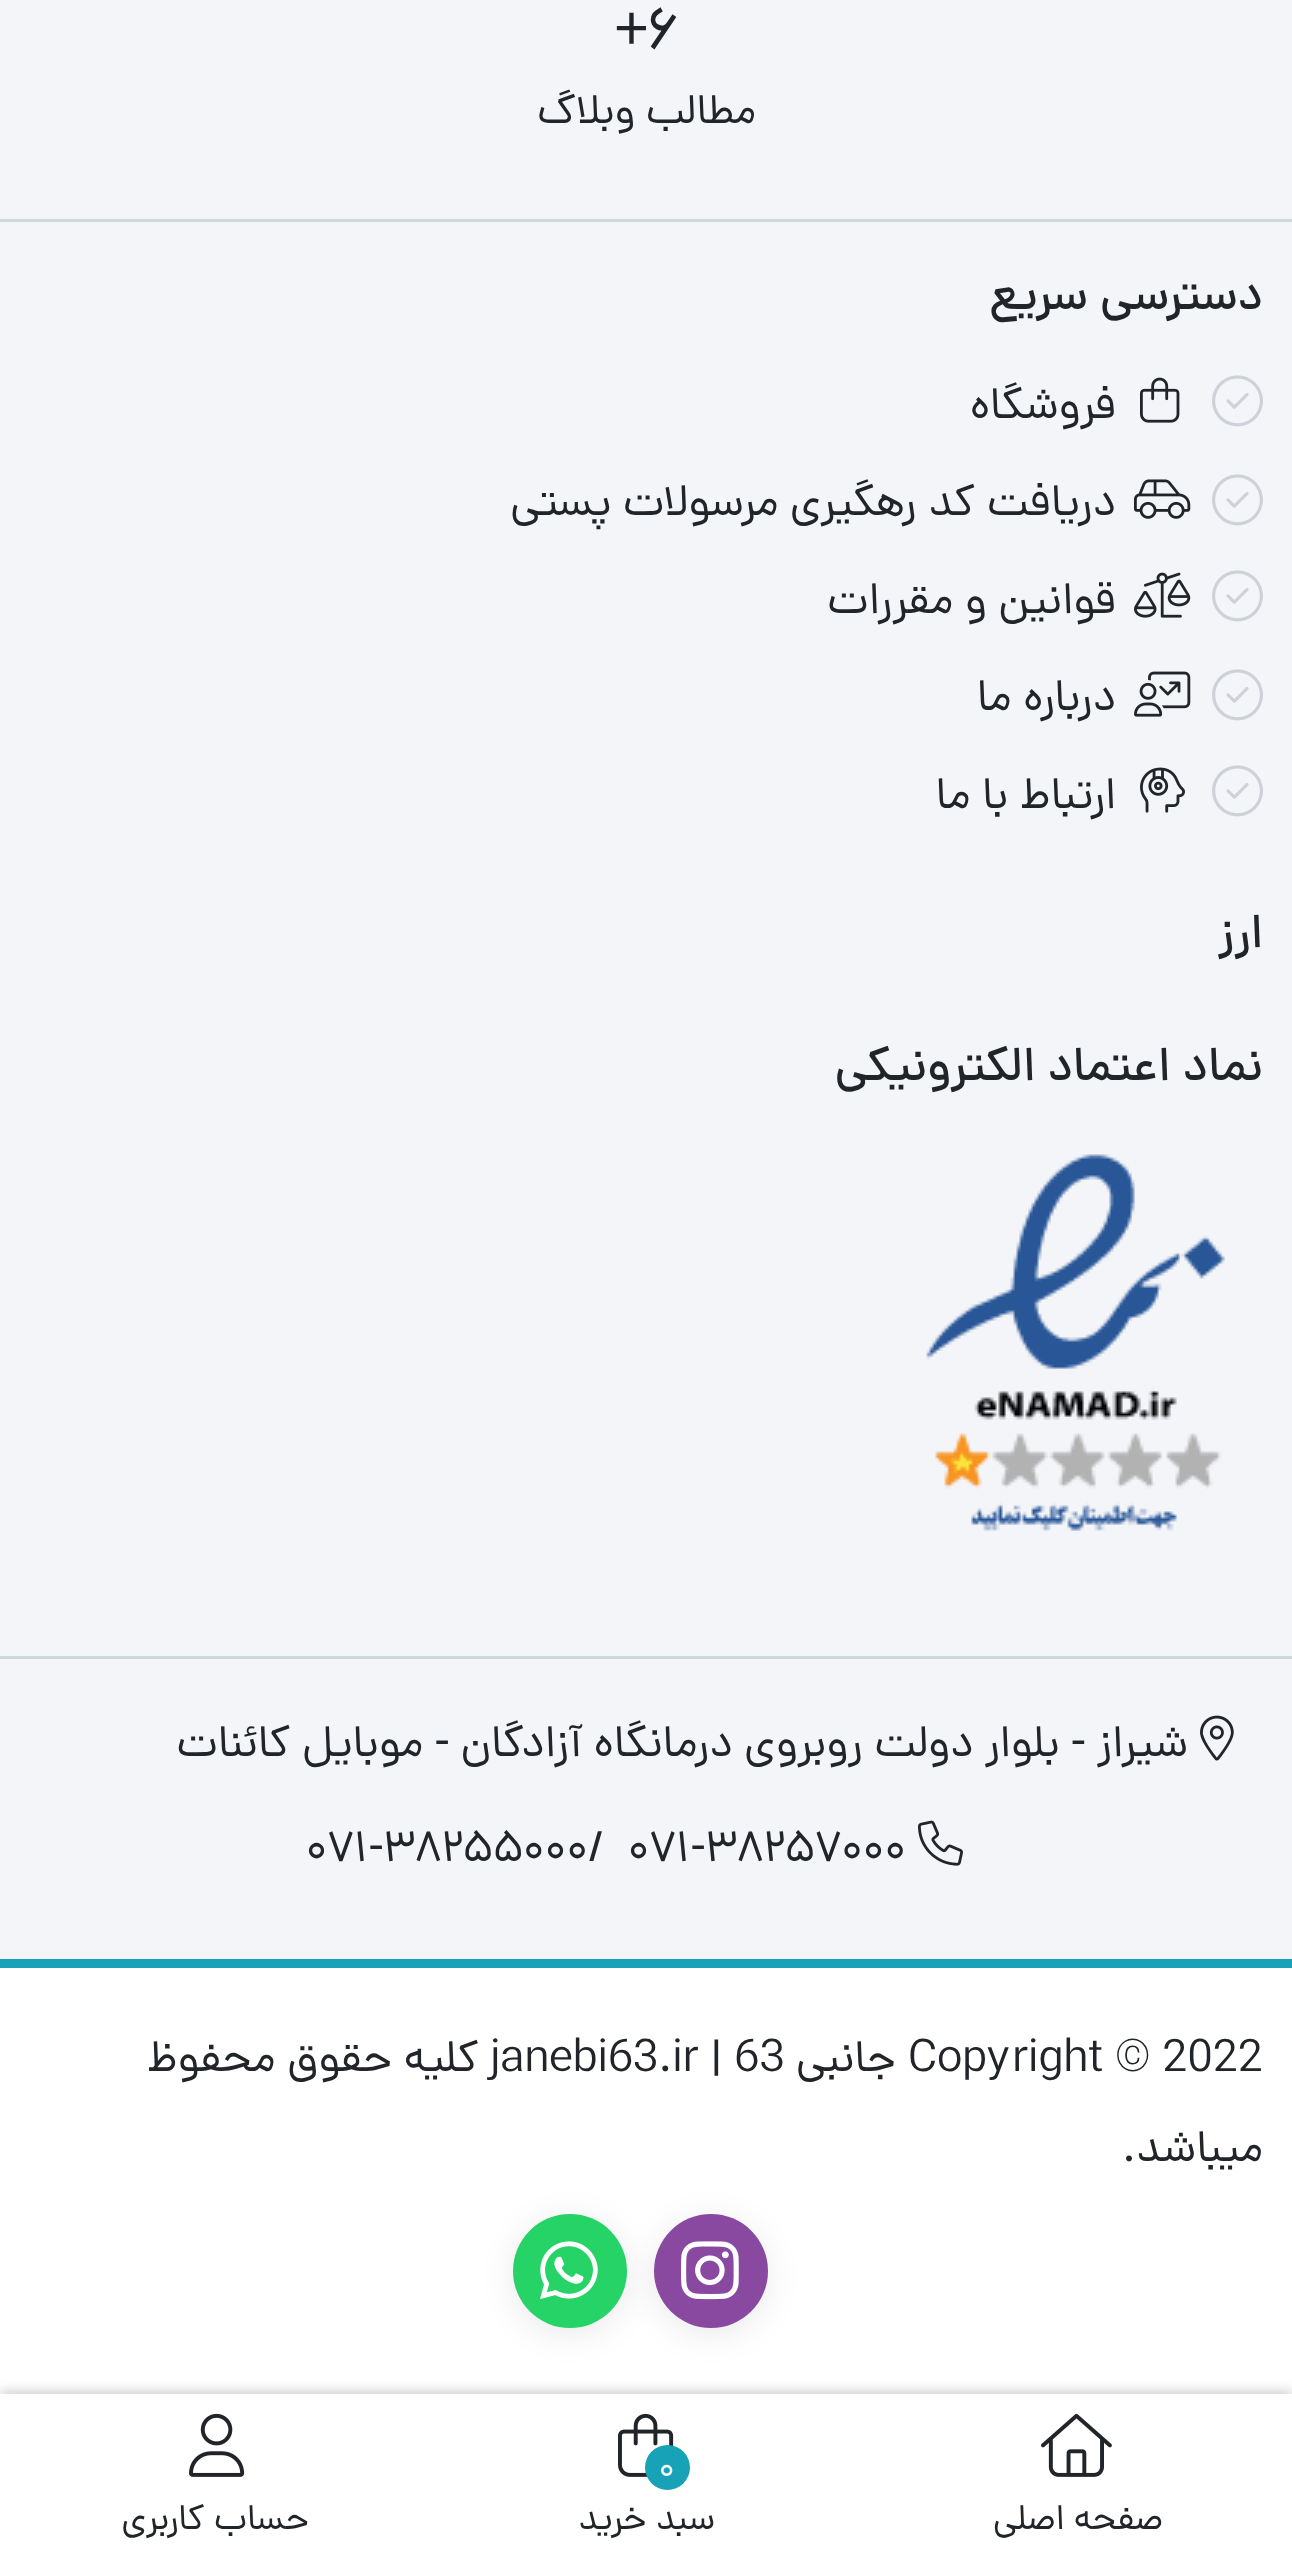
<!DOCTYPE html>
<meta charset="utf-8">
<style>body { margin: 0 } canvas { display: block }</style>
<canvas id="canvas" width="1292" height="2559"></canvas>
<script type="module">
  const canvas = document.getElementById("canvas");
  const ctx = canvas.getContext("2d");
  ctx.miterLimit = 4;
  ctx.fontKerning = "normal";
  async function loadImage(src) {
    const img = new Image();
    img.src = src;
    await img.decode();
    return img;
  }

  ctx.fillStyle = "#f4f5f9";
  ctx.fillRect(0, 0, 1292, 2559);
  ctx.fillStyle = "#cfd8dc";
  ctx.fillRect(0, 219, 1292, 3);
  ctx.font = "60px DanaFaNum";
  ctx.fillStyle = "#212529";
  ctx.fillText("+6", 615, 48);
  ctx.direction = "rtl";
  ctx.font = "42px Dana";
  ctx.fillText("مطالب وبلاگ", 756, 123);
  ctx.fillStyle = "#cfd8dc";
  ctx.fillRect(0, 1656, 1292, 3);
  ctx.font = "500 48px Dana";
  ctx.fillStyle = "#212529";
  ctx.fillText("دسترسی سریع", 1263, 309);
  ctx.drawImage(await loadImage("img1.png"), 1212, 375, 51, 52);
  ctx.drawImage(await loadImage("img2.png"), 1140, 377, 40, 46);
  ctx.font = "45px Dana";
  ctx.fillText("فروشگاه", 1116, 418);
  ctx.drawImage(await loadImage("img1.png"), 1212, 474, 51, 52);
  ctx.drawImage(await loadImage("img3.png"), 1134, 479, 57, 40);
  ctx.fillText("دریافت کد رهگیری مرسولات پستی", 1116, 515);
  ctx.drawImage(await loadImage("img1.png"), 1212, 570, 51, 52);
  ctx.drawImage(await loadImage("img4.png"), 1134, 572, 57, 46);
  ctx.fillText("قوانین و مقررات", 1116, 613);
  ctx.drawImage(await loadImage("img1.png"), 1212, 669, 51, 52);
  ctx.drawImage(await loadImage("img5.png"), 1134, 671, 57, 46);
  ctx.fillText("درباره ما", 1116, 710);
  ctx.drawImage(await loadImage("img1.png"), 1212, 765, 51, 52);
  ctx.drawImage(await loadImage("img6.png"), 1140, 767, 45, 46);
  ctx.fillText("ارتباط با ما", 1116, 808);
  ctx.font = "500 48px Dana";
  ctx.fillText("ارز", 1263, 947);
  ctx.fillText("نماد اعتماد الکترونیکی", 1263, 1080);
  ctx.drawImage(await loadImage("img7.png"), 926, 1154, 299, 377);
  ctx.drawImage(await loadImage("img8.png"), 1200, 1715, 34, 46);
  ctx.font = "45px DanaFaNum";
  ctx.fillText("شیراز - بلوار دولت روبروی درمانگاه آزادگان - موبایل کائنات", 1188, 1756);
  ctx.drawImage(await loadImage("img9.png"), 918, 1820, 45, 46);
  ctx.direction = "ltr";
  ctx.fillText("071-38257000", 628, 1861);
  ctx.fillText("071-38255000/", 306, 1861);
  ctx.fillStyle = "#ffffff";
  ctx.fillRect(0, 1968, 1292, 426);
  ctx.fillStyle = "#17a2b8";
  ctx.fillRect(0, 1959, 1292, 9);
  ctx.font = "45px Dana";
  ctx.fillStyle = "#212529";
  ctx.fillText("Copyright © 2022", 908, 2071);
  ctx.direction = "rtl";
  ctx.fillText("جانبی", 896, 2071);
  ctx.direction = "ltr";
  ctx.fillText("janebi63.ir | 63", 490, 2071);
  ctx.direction = "rtl";
  ctx.fillText("کلیه حقوق محفوظ", 479, 2071);
  ctx.fillText("میباشد.", 1263, 2161);
  ctx.fillStyle = "rgba(0, 0, 0, 0.07)";
  ctx.filter = "blur(15px)";
  ctx.beginPath();
  ctx.roundRect(510, 2217, 120, 120, 60);
  ctx.fill();
  ctx.filter = "none";
  ctx.fillStyle = "#25d366";
  ctx.beginPath();
  ctx.arc(570, 2271, 57, 0, Math.PI * 2);
  ctx.fill();
  ctx.fillStyle = "rgba(0, 0, 0, 0.07)";
  ctx.filter = "blur(15px)";
  ctx.beginPath();
  ctx.roundRect(651, 2217, 120, 120, 60);
  ctx.fill();
  ctx.filter = "none";
  ctx.fillStyle = "#8a49a1";
  ctx.beginPath();
  ctx.arc(711, 2271, 57, 0, Math.PI * 2);
  ctx.fill();
  ctx.drawImage(await loadImage("img10.png"), 681, 2241, 58, 59);
  ctx.drawImage(await loadImage("img11.png"), 540, 2241, 58, 59);
  ctx.fillStyle = "rgba(0, 0, 0, 0.19)";
  ctx.filter = "blur(6px)";
  ctx.beginPath();
  ctx.rect(0, 2391, 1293, 165);
  ctx.fill();
  ctx.filter = "none";
  ctx.fillStyle = "#ffffff";
  ctx.fillRect(0, 2394, 1292, 165);
  ctx.drawImage(await loadImage("img12.png"), 1041, 2413, 71, 64);
  ctx.font = "36px Dana";
  ctx.fillStyle = "#212529";
  ctx.fillText("صفحه اصلی", 1163, 2529);
  ctx.drawImage(await loadImage("img13.png"), 618, 2413, 56, 64);
  ctx.fillStyle = "#17a2b8";
  ctx.beginPath();
  ctx.arc(667.5, 2467.5, 22.5, 0, Math.PI * 2);
  ctx.fill();
  ctx.direction = "ltr";
  ctx.font = "33px DanaFaNum";
  ctx.fillStyle = "#ffffff";
  ctx.fillText("0", 659, 2478);
  ctx.direction = "rtl";
  ctx.font = "36px Dana";
  ctx.fillStyle = "#212529";
  ctx.fillText("سبد خرید", 715, 2529);
  ctx.drawImage(await loadImage("img14.png"), 189, 2413, 56, 64);
  ctx.fillText("حساب کاربری", 309, 2529);
</script>
